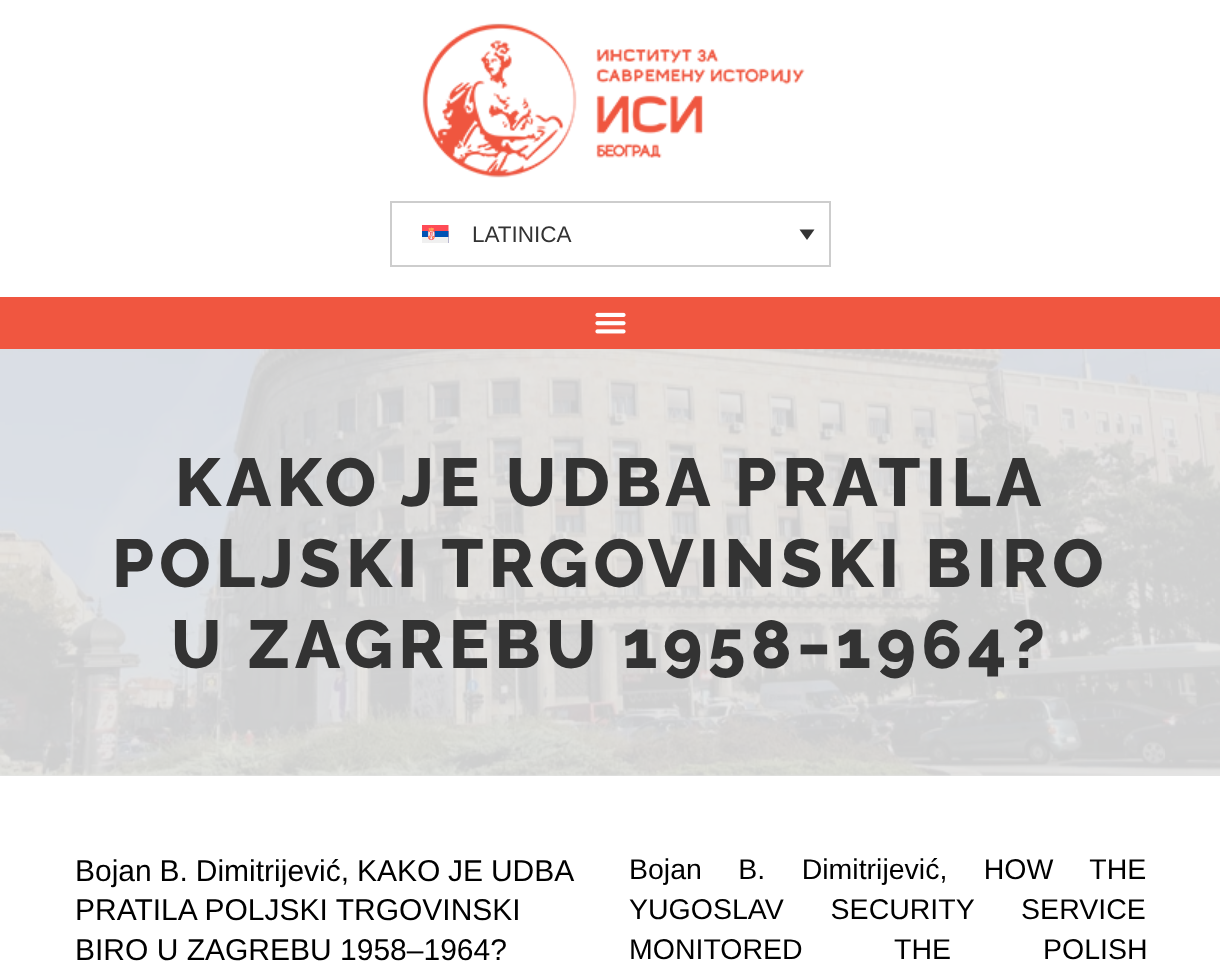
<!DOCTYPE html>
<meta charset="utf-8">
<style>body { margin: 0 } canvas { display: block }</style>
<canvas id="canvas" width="1220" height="976"></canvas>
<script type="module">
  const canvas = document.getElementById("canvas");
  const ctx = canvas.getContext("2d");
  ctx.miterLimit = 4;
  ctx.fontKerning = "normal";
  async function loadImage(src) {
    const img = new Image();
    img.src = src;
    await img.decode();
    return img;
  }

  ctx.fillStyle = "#ffffff";
  ctx.fillRect(0, 0, 1220, 976);
  ctx.fillStyle = "#e6e6e6";
  ctx.fillRect(0, 774, 1220, 2);
  ctx.fillStyle = "#f05640";
  ctx.fillRect(0, 297, 1220, 52);
  ctx.drawImage(await loadImage("img1.png"), 422, 23, 383, 155);
  ctx.strokeStyle = "#cdcdcd";
  ctx.lineWidth = 2;
  ctx.strokeRect(391, 202, 439, 64);
  ctx.drawImage(await loadImage("img2.png"), 422, 225, 27, 18);
  ctx.font = "22.5px Liberation Sans";
  ctx.fillStyle = "#333333";
  ctx.fillText("LATINICA", 472, 242);
  ctx.beginPath();
  ctx.moveTo(799.5, 229.5);
  ctx.lineTo(814.5, 229.5);
  ctx.lineTo(807, 240);
  ctx.closePath();
  ctx.fill();
  ctx.drawImage(await loadImage("img3.png"), 595, 312, 31, 22);
  ctx.drawImage(await loadImage("img4.png"), 0, 349, 1220, 427);
  ctx.letterSpacing = "5.25px";
  ctx.font = "800 67.5px Raleway";
  ctx.fillText("KAKO JE UDBA PRATILA", 175, 506);
  ctx.fillText("POLJSKI TRGOVINSKI BIRO", 112, 587);
  ctx.fillText("U ZAGREBU 1958‒1964?", 171, 668);
  ctx.letterSpacing = "0px";
  ctx.wordSpacing = "-0.5px";
  ctx.font = "30px Liberation Sans";
  ctx.fillStyle = "#000000";
  ctx.fillText("Bojan B. Dimitrijević, KAKO JE UDBA", 75, 881);
  ctx.wordSpacing = "0px";
  ctx.fillText("PRATILA POLJSKI TRGOVINSKI", 75, 920);
  ctx.fillText("BIRO U ZAGREBU 1958‒1964?", 75, 960);
  ctx.wordSpacing = "28.5px";
  ctx.font = "28.5px Liberation Sans";
  ctx.fillText("Bojan B. Dimitrijević, HOW THE", 629, 879);
  ctx.wordSpacing = "39px";
  ctx.fillText("YUGOSLAV SECURITY SERVICE", 629, 919);
  ctx.wordSpacing = "84px";
  ctx.fillText("MONITORED THE POLISH", 629, 959);
</script>
